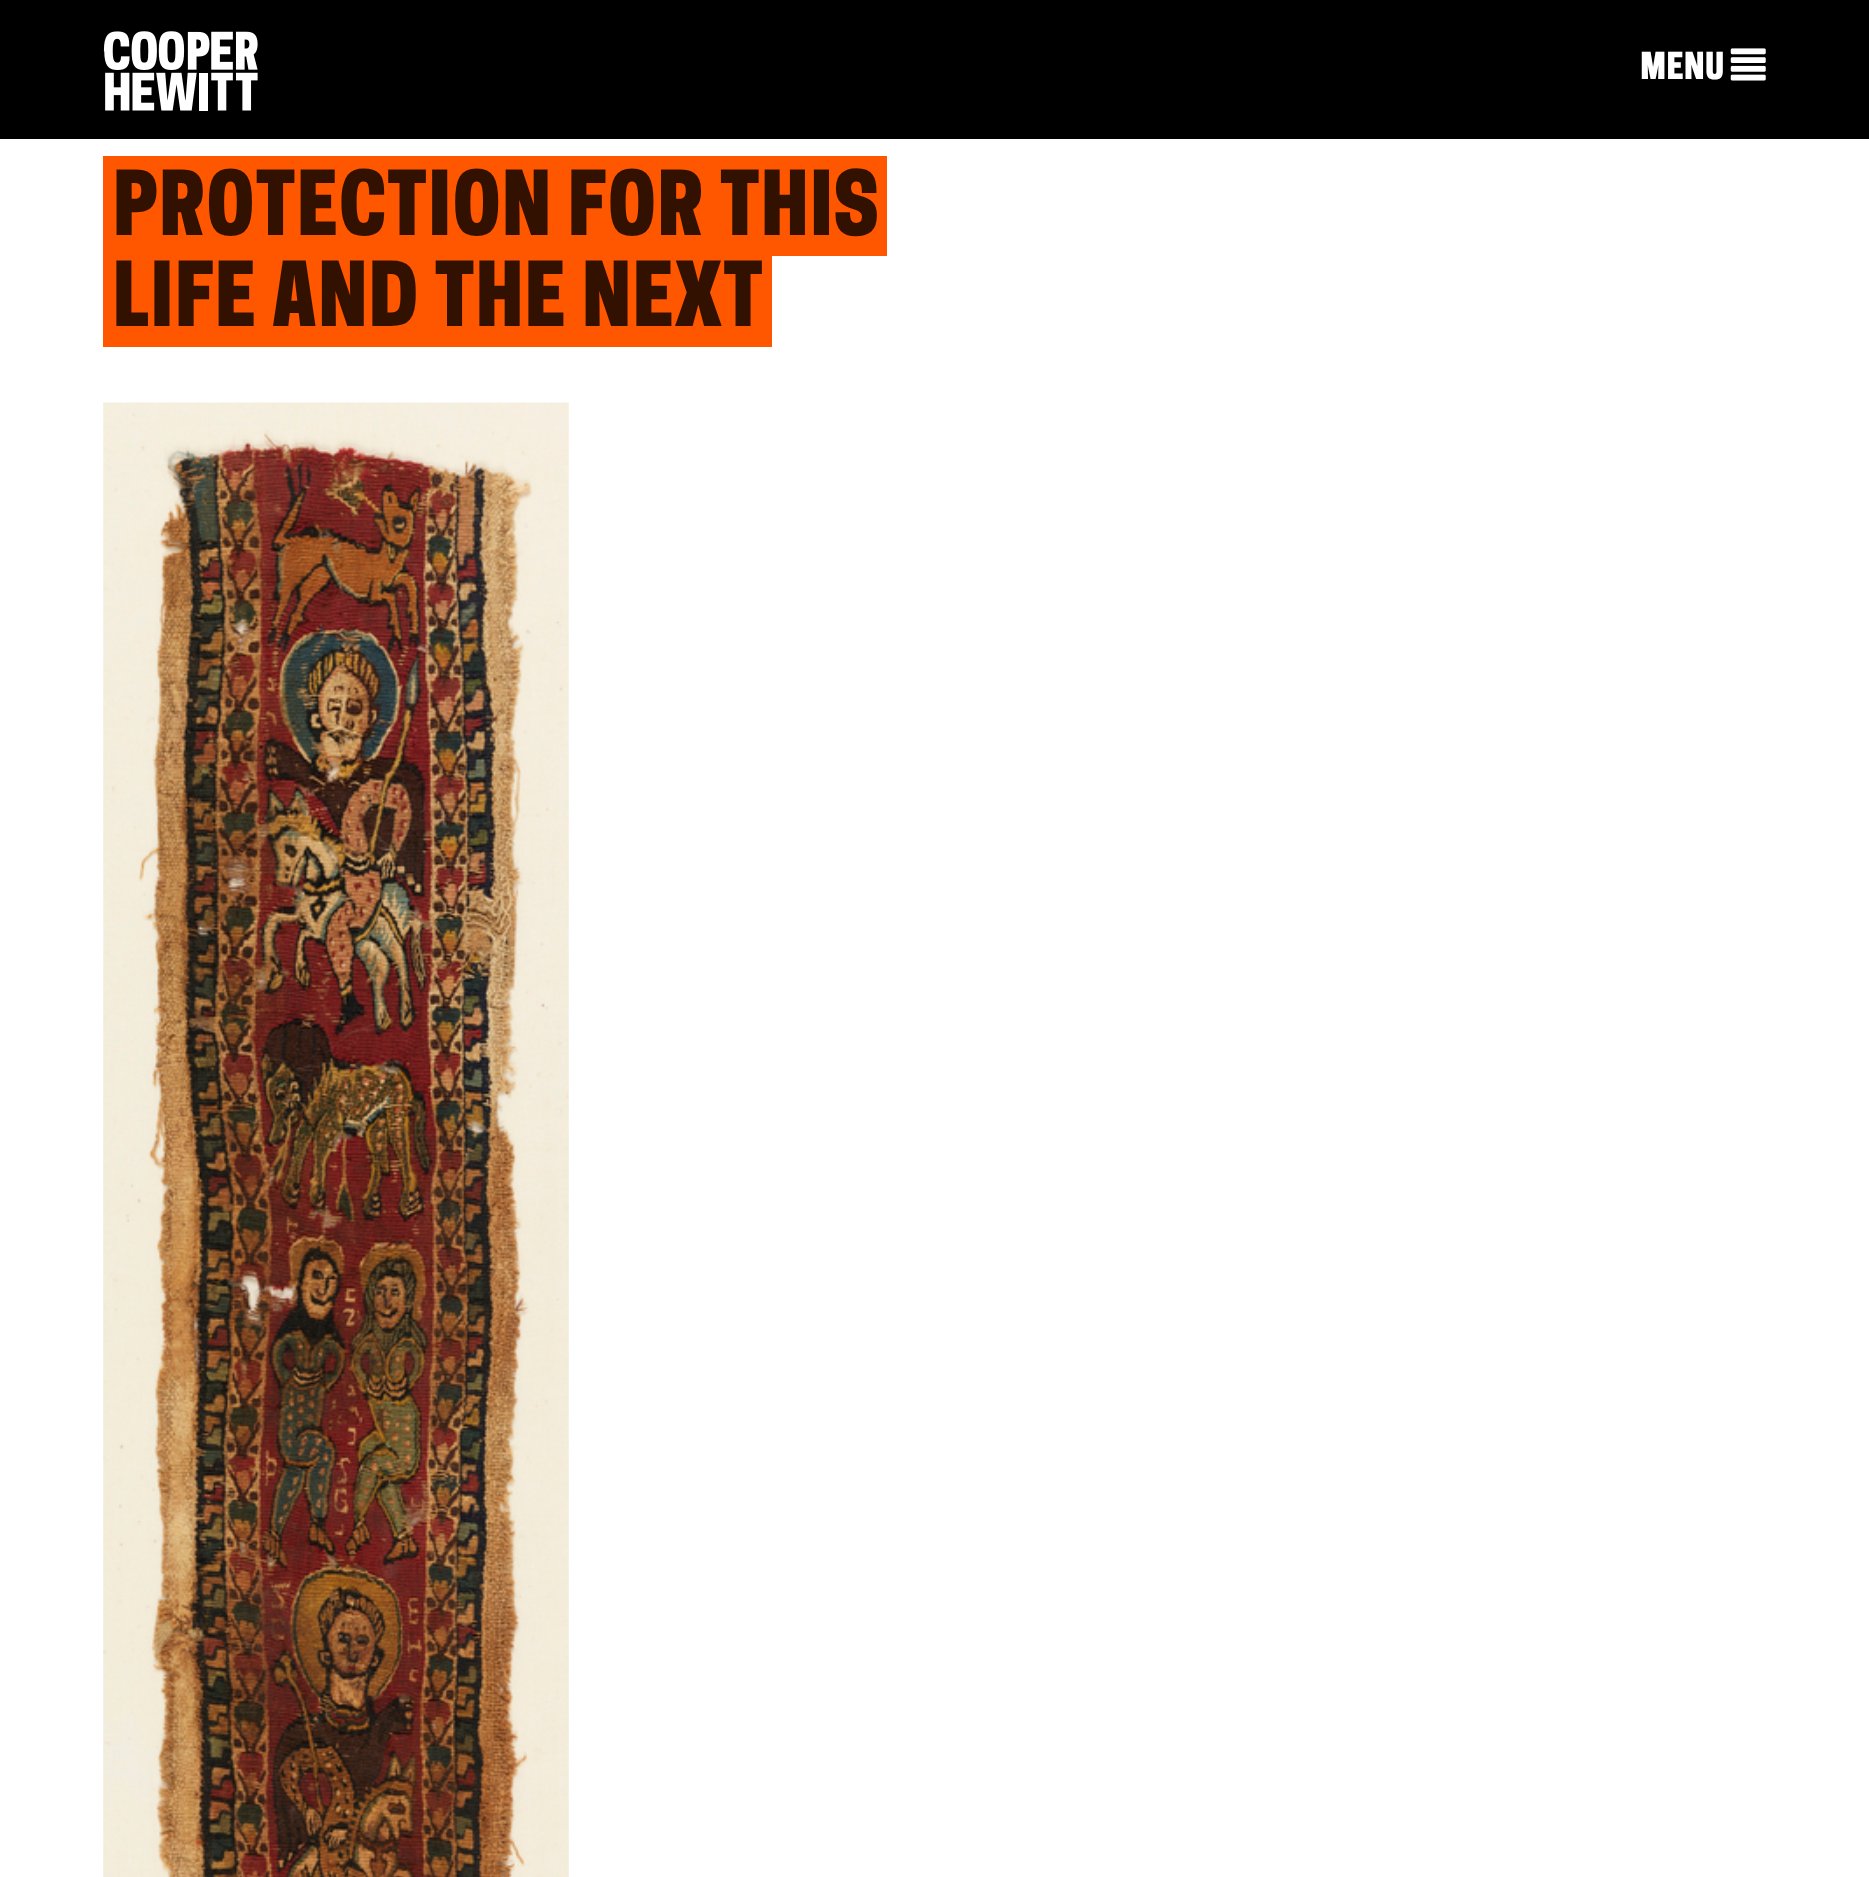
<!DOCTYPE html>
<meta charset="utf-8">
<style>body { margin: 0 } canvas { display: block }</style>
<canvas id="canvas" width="1869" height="1877"></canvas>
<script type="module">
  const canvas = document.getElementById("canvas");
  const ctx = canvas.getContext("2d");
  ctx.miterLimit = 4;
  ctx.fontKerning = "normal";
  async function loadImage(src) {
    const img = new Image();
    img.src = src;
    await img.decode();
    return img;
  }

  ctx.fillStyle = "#ffffff";
  ctx.fillRect(0, 0, 1869, 1877);
  ctx.fillStyle = "#000000";
  ctx.fillRect(0, 0, 1869, 139);
  ctx.drawImage(await loadImage("img1.png"), 103, 31, 155, 80);
  ctx.font = "600 35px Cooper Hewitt";
  ctx.fillStyle = "#ffffff";
  ctx.fillText("MENU", 1640, 79);
  ctx.drawImage(await loadImage("img2.png"), 1730, 48, 36, 33);
  ctx.fillStyle = "#ff5700";
  ctx.fillRect(112, 156, 766, 100);
  ctx.font = "600 84px Cooper Hewitt";
  ctx.fillStyle = "#331100";
  ctx.fillText("PROTECTION FOR THIS", 112, 235);
  ctx.fillStyle = "#ff5700";
  ctx.beginPath();
  ctx.moveTo(103, 156);
  ctx.lineTo(103, 256);
  ctx.lineTo(870, 256);
  ctx.lineTo(112, 256);
  ctx.lineTo(112, 156);
  ctx.closePath();
  ctx.fill();
  ctx.beginPath();
  ctx.moveTo(121, 256);
  ctx.lineTo(887, 256);
  ctx.lineTo(887, 156);
  ctx.lineTo(878, 156);
  ctx.lineTo(878, 256);
  ctx.closePath();
  ctx.fill();
  ctx.beginPath();
  ctx.moveTo(103, 247);
  ctx.lineTo(103, 347);
  ctx.lineTo(754, 347);
  ctx.lineTo(754, 346);
  ctx.lineTo(112, 346);
  ctx.lineTo(112, 247);
  ctx.closePath();
  ctx.fill();
  ctx.beginPath();
  ctx.moveTo(121, 346);
  ctx.lineTo(121, 347);
  ctx.lineTo(772, 347);
  ctx.lineTo(772, 247);
  ctx.lineTo(763, 247);
  ctx.lineTo(763, 346);
  ctx.closePath();
  ctx.fill();
  ctx.fillRect(112, 256, 651, 90);
  ctx.fillStyle = "#331100";
  ctx.fillText("LIFE AND THE NEXT", 112, 326);
  ctx.drawImage(await loadImage("img3.png"), 103, 402, 466, 1475);
</script>
